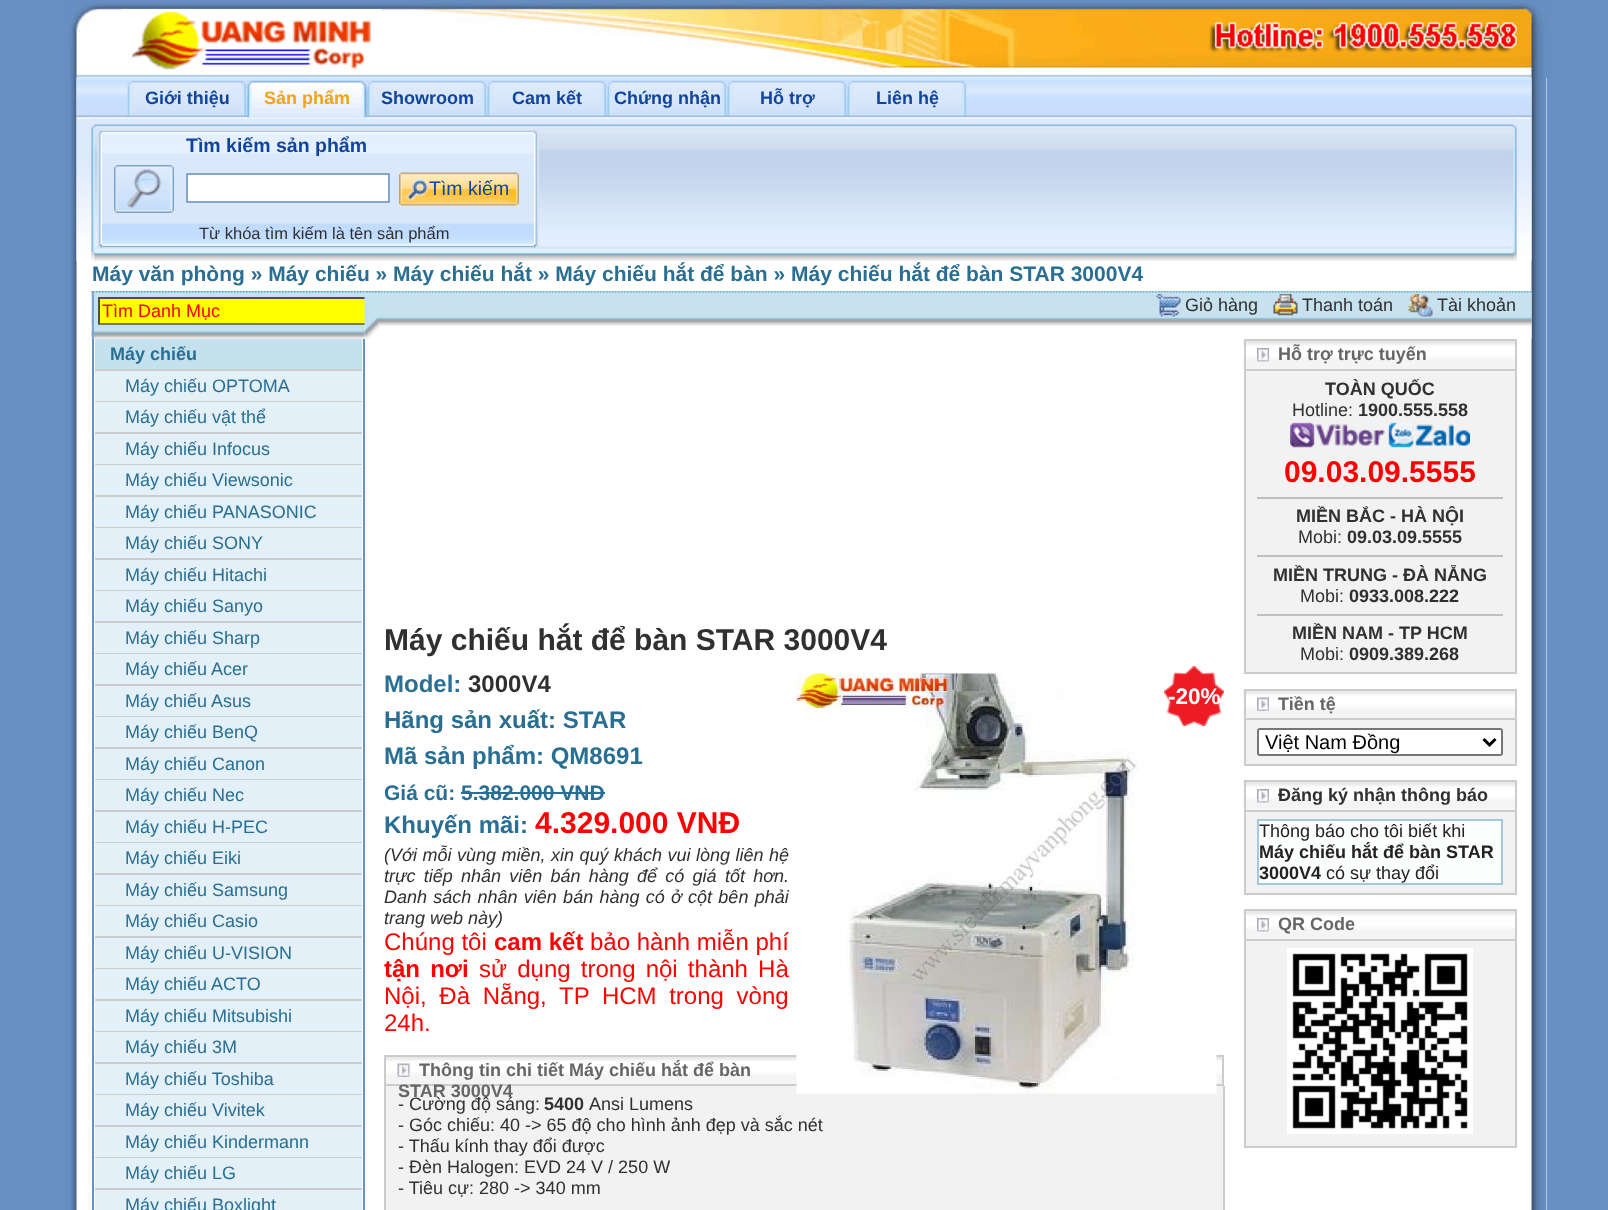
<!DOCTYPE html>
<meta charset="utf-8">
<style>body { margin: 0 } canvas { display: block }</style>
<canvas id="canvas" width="1608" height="1210"></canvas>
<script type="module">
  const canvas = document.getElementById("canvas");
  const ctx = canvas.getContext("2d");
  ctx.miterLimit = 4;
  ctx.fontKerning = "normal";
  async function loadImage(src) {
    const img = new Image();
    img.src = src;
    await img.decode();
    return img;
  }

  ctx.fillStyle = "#678fc2";
  ctx.fillRect(0, 0, 1608, 1210);
  ctx.drawImage(await loadImage("img1.png"), 68, 0, 1479, 78);
  ctx.drawImage(await loadImage("img2.png"), 121, 9, 260, 61);
  ctx.drawImage(await loadImage("img3.png"), 1209, 22, 308, 31);
  ctx.fillStyle = "#ffffff";
  ctx.fillRect(1546, 78, 1, 1132);
  ctx.drawImage(await loadImage("img4.png"), 62, 78, 1485, 1132);
  ctx.drawImage(await loadImage("img5.png"), 76, 78, 1456, 41);
  ctx.drawImage(await loadImage("img6.png"), 127, 80, 120, 37);
  ctx.font = "bold 18px Liberation Sans";
  ctx.fillStyle = "#11449e";
  ctx.fillText("Giới thiệu", 145, 104);
  ctx.drawImage(await loadImage("img7.png"), 247, 80, 121, 39);
  ctx.fillStyle = "#f2a31b";
  ctx.fillText("Sản phẩm", 264, 104);
  ctx.drawImage(await loadImage("img8.png"), 367, 80, 120, 37);
  ctx.fillStyle = "#11449e";
  ctx.fillText("Showroom", 381, 104);
  ctx.drawImage(await loadImage("img9.png"), 487, 80, 120, 37);
  ctx.fillText("Cam kết", 512, 104);
  ctx.drawImage(await loadImage("img10.png"), 607, 80, 120, 37);
  ctx.fillText("Chứng nhận", 614, 104);
  ctx.drawImage(await loadImage("img11.png"), 727, 80, 120, 37);
  ctx.fillText("Hỗ trợ", 760, 104);
  ctx.drawImage(await loadImage("img9.png"), 847, 80, 120, 37);
  ctx.fillText("Liên hệ", 876, 104);
  ctx.drawImage(await loadImage("img12.png"), 76, 118, 1456, 143);
  ctx.drawImage(await loadImage("img13.png"), 91, 118, 1426, 143);
  ctx.drawImage(await loadImage("img14.png"), 91, 118, 6, 143);
  ctx.drawImage(await loadImage("img15.png"), 97, 130, 442, 118);
  ctx.drawImage(await loadImage("img16.png"), 97, 130, 5, 118);
  ctx.font = "bold 19.5px Liberation Sans";
  ctx.fillText("Tìm kiếm sản phẩm", 186, 152);
  ctx.drawImage(await loadImage("img17.png"), 114, 165, 60, 48);
  ctx.fillStyle = "#ffffff";
  ctx.beginPath();
  ctx.rect(187, 174, 202, 28);
  ctx.fill();
  ctx.strokeStyle = "#84a5ce";
  ctx.lineWidth = 2;
  ctx.stroke();
  ctx.fillStyle = "#efefef";
  ctx.fillRect(399, 205, 120, 1);
  ctx.drawImage(await loadImage("img18.png"), 399, 172, 120, 34);
  ctx.font = "19.5px Liberation Sans";
  ctx.fillStyle = "#11449e";
  ctx.fillText("Tìm kiếm", 429, 195);
  ctx.font = "16.5px Liberation Sans";
  ctx.fillStyle = "#303030";
  ctx.fillText("Từ khóa tìm kiếm là tên sản phẩm", 199, 239);
  ctx.drawImage(await loadImage("img19.png"), 534, 130, 5, 118);
  ctx.drawImage(await loadImage("img20.png"), 1511, 118, 6, 143);
  ctx.font = "bold 21px Liberation Sans";
  ctx.fillStyle = "#296f94";
  ctx.fillText("Máy văn phòng » Máy chiếu » Máy chiếu hắt » Máy chiếu hắt để bàn » Máy chiếu hắt để bàn STAR 3000V4", 92, 281);
  ctx.drawImage(await loadImage("img21.png"), 91, 291, 1441, 48);
  ctx.drawImage(await loadImage("img22.png"), 91, 291, 274, 48);
  ctx.fillStyle = "#84a5ce";
  ctx.fillRect(92, 291, 2, 48);
  ctx.fillStyle = "#ffff00";
  ctx.fillRect(100, 299, 265, 24);
  ctx.fillStyle = "#4f4f4f";
  ctx.fillRect(98, 297, 268, 2);
  ctx.fillStyle = "#767676";
  ctx.fillRect(98, 323, 268, 2);
  ctx.fillStyle = "#4f4f4f";
  ctx.fillRect(98, 297, 2, 27);
  ctx.font = "18px Liberation Sans";
  ctx.fillStyle = "#ff0000";
  ctx.fillText("Tìm Danh Mục", 102, 317);
  ctx.drawImage(await loadImage("img23.png"), 364, 291, 16, 48);
  ctx.drawImage(await loadImage("img24.png"), 1156, 294, 25, 23);
  ctx.fillStyle = "#303030";
  ctx.fillText("Giỏ hàng", 1185, 311);
  ctx.drawImage(await loadImage("img25.png"), 1273, 294, 25, 22);
  ctx.fillText("Thanh toán", 1302, 311);
  ctx.drawImage(await loadImage("img26.png"), 1408, 294, 25, 23);
  ctx.fillText("Tài khoản", 1437, 311);
  ctx.fillStyle = "#678fc2";
  ctx.fillRect(363, 339, 2, 871);
  ctx.fillRect(92, 339, 2, 871);
  ctx.fillStyle = "#cccccc";
  ctx.fillRect(95, 369, 267, 2);
  ctx.fillStyle = "#c6e1ee";
  ctx.fillRect(95, 339, 267, 30);
  ctx.font = "bold 18px Liberation Sans";
  ctx.fillStyle = "#296f94";
  ctx.fillText("Máy chiếu", 110, 360);
  ctx.fillStyle = "#cccccc";
  ctx.fillRect(95, 401, 267, 1);
  ctx.fillStyle = "#e3f0f7";
  ctx.fillRect(95, 371, 267, 30);
  ctx.font = "18px Liberation Sans";
  ctx.fillStyle = "#296f94";
  ctx.fillText("Máy chiếu OPTOMA", 125, 392);
  ctx.fillStyle = "#cccccc";
  ctx.fillRect(95, 432, 267, 2);
  ctx.fillStyle = "#e3f0f7";
  ctx.fillRect(95, 402, 267, 30);
  ctx.fillStyle = "#296f94";
  ctx.fillText("Máy chiếu vật thể", 125, 423);
  ctx.fillStyle = "#cccccc";
  ctx.fillRect(95, 464, 267, 1);
  ctx.fillStyle = "#e3f0f7";
  ctx.fillRect(95, 434, 267, 30);
  ctx.fillStyle = "#296f94";
  ctx.fillText("Máy chiếu Infocus", 125, 455);
  ctx.fillStyle = "#cccccc";
  ctx.fillRect(95, 495, 267, 2);
  ctx.fillStyle = "#e3f0f7";
  ctx.fillRect(95, 465, 267, 30);
  ctx.fillStyle = "#296f94";
  ctx.fillText("Máy chiếu Viewsonic", 125, 486);
  ctx.fillStyle = "#cccccc";
  ctx.fillRect(95, 527, 267, 1);
  ctx.fillStyle = "#e3f0f7";
  ctx.fillRect(95, 497, 267, 30);
  ctx.fillStyle = "#296f94";
  ctx.fillText("Máy chiếu PANASONIC", 125, 518);
  ctx.fillStyle = "#cccccc";
  ctx.fillRect(95, 558, 267, 2);
  ctx.fillStyle = "#e3f0f7";
  ctx.fillRect(95, 528, 267, 30);
  ctx.fillStyle = "#296f94";
  ctx.fillText("Máy chiếu SONY", 125, 549);
  ctx.fillStyle = "#cccccc";
  ctx.fillRect(95, 590, 267, 1);
  ctx.fillStyle = "#e3f0f7";
  ctx.fillRect(95, 560, 267, 30);
  ctx.fillStyle = "#296f94";
  ctx.fillText("Máy chiếu Hitachi", 125, 581);
  ctx.fillStyle = "#cccccc";
  ctx.fillRect(95, 621, 267, 2);
  ctx.fillStyle = "#e3f0f7";
  ctx.fillRect(95, 591, 267, 30);
  ctx.fillStyle = "#296f94";
  ctx.fillText("Máy chiếu Sanyo", 125, 612);
  ctx.fillStyle = "#cccccc";
  ctx.fillRect(95, 653, 267, 1);
  ctx.fillStyle = "#e3f0f7";
  ctx.fillRect(95, 623, 267, 30);
  ctx.fillStyle = "#296f94";
  ctx.fillText("Máy chiếu Sharp", 125, 644);
  ctx.fillStyle = "#cccccc";
  ctx.fillRect(95, 684, 267, 2);
  ctx.fillStyle = "#e3f0f7";
  ctx.fillRect(95, 654, 267, 30);
  ctx.fillStyle = "#296f94";
  ctx.fillText("Máy chiếu Acer", 125, 675);
  ctx.fillStyle = "#cccccc";
  ctx.fillRect(95, 716, 267, 1);
  ctx.fillStyle = "#e3f0f7";
  ctx.fillRect(95, 686, 267, 30);
  ctx.fillStyle = "#296f94";
  ctx.fillText("Máy chiếu Asus", 125, 707);
  ctx.fillStyle = "#cccccc";
  ctx.fillRect(95, 747, 267, 2);
  ctx.fillStyle = "#e3f0f7";
  ctx.fillRect(95, 717, 267, 30);
  ctx.fillStyle = "#296f94";
  ctx.fillText("Máy chiếu BenQ", 125, 738);
  ctx.fillStyle = "#cccccc";
  ctx.fillRect(95, 779, 267, 1);
  ctx.fillStyle = "#e3f0f7";
  ctx.fillRect(95, 749, 267, 30);
  ctx.fillStyle = "#296f94";
  ctx.fillText("Máy chiếu Canon", 125, 770);
  ctx.fillStyle = "#cccccc";
  ctx.fillRect(95, 810, 267, 2);
  ctx.fillStyle = "#e3f0f7";
  ctx.fillRect(95, 780, 267, 30);
  ctx.fillStyle = "#296f94";
  ctx.fillText("Máy chiếu Nec", 125, 801);
  ctx.fillStyle = "#cccccc";
  ctx.fillRect(95, 842, 267, 1);
  ctx.fillStyle = "#e3f0f7";
  ctx.fillRect(95, 812, 267, 30);
  ctx.fillStyle = "#296f94";
  ctx.fillText("Máy chiếu H-PEC", 125, 833);
  ctx.fillStyle = "#cccccc";
  ctx.fillRect(95, 873, 267, 2);
  ctx.fillStyle = "#e3f0f7";
  ctx.fillRect(95, 843, 267, 30);
  ctx.fillStyle = "#296f94";
  ctx.fillText("Máy chiếu Eiki", 125, 864);
  ctx.fillStyle = "#cccccc";
  ctx.fillRect(95, 905, 267, 1);
  ctx.fillStyle = "#e3f0f7";
  ctx.fillRect(95, 875, 267, 30);
  ctx.fillStyle = "#296f94";
  ctx.fillText("Máy chiếu Samsung", 125, 896);
  ctx.fillStyle = "#cccccc";
  ctx.fillRect(95, 936, 267, 2);
  ctx.fillStyle = "#e3f0f7";
  ctx.fillRect(95, 906, 267, 30);
  ctx.fillStyle = "#296f94";
  ctx.fillText("Máy chiếu Casio", 125, 927);
  ctx.fillStyle = "#cccccc";
  ctx.fillRect(95, 968, 267, 1);
  ctx.fillStyle = "#e3f0f7";
  ctx.fillRect(95, 938, 267, 30);
  ctx.fillStyle = "#296f94";
  ctx.fillText("Máy chiếu U-VISION", 125, 959);
  ctx.fillStyle = "#cccccc";
  ctx.fillRect(95, 999, 267, 2);
  ctx.fillStyle = "#e3f0f7";
  ctx.fillRect(95, 969, 267, 30);
  ctx.fillStyle = "#296f94";
  ctx.fillText("Máy chiếu ACTO", 125, 990);
  ctx.fillStyle = "#cccccc";
  ctx.fillRect(95, 1031, 267, 1);
  ctx.fillStyle = "#e3f0f7";
  ctx.fillRect(95, 1001, 267, 30);
  ctx.fillStyle = "#296f94";
  ctx.fillText("Máy chiếu Mitsubishi", 125, 1022);
  ctx.fillStyle = "#cccccc";
  ctx.fillRect(95, 1062, 267, 2);
  ctx.fillStyle = "#e3f0f7";
  ctx.fillRect(95, 1032, 267, 30);
  ctx.fillStyle = "#296f94";
  ctx.fillText("Máy chiếu 3M", 125, 1053);
  ctx.fillStyle = "#cccccc";
  ctx.fillRect(95, 1094, 267, 1);
  ctx.fillStyle = "#e3f0f7";
  ctx.fillRect(95, 1064, 267, 30);
  ctx.fillStyle = "#296f94";
  ctx.fillText("Máy chiếu Toshiba", 125, 1085);
  ctx.fillStyle = "#cccccc";
  ctx.fillRect(95, 1125, 267, 2);
  ctx.fillStyle = "#e3f0f7";
  ctx.fillRect(95, 1095, 267, 30);
  ctx.fillStyle = "#296f94";
  ctx.fillText("Máy chiếu Vivitek", 125, 1116);
  ctx.fillStyle = "#cccccc";
  ctx.fillRect(95, 1157, 267, 1);
  ctx.fillStyle = "#e3f0f7";
  ctx.fillRect(95, 1127, 267, 30);
  ctx.fillStyle = "#296f94";
  ctx.fillText("Máy chiếu Kindermann", 125, 1148);
  ctx.fillStyle = "#cccccc";
  ctx.fillRect(95, 1188, 267, 2);
  ctx.fillStyle = "#e3f0f7";
  ctx.fillRect(95, 1158, 267, 30);
  ctx.fillStyle = "#296f94";
  ctx.fillText("Máy chiếu LG", 125, 1179);
  ctx.fillStyle = "#e3f0f7";
  ctx.fillRect(95, 1190, 267, 20);
  ctx.fillStyle = "#296f94";
  ctx.fillText("Máy chiếu Boxlight", 125, 1211);
  ctx.font = "bold 30px Liberation Sans";
  ctx.fillStyle = "#303030";
  ctx.fillText("Máy chiếu hắt để bàn STAR 3000V4", 384, 650);
  ctx.font = "bold 24px Liberation Sans";
  ctx.fillStyle = "#296f94";
  ctx.fillText("Model:", 384, 692);
  ctx.fillStyle = "#303030";
  ctx.fillText("3000V4", 468, 692);
  ctx.drawImage(await loadImage("img29.png"), 386, 1057, 836, 27);
  ctx.strokeStyle = "#cccccc";
  ctx.strokeRect(385, 1056, 838, 29);
  ctx.fillStyle = "#f2f2f2";
  ctx.fillRect(386, 1086, 837, 124);
  ctx.drawImage(await loadImage("img27.png"), 796, 673, 421, 421);
  ctx.drawImage(await loadImage("img28.png"), 1164, 666, 60, 60);
  ctx.font = "bold 22.5px Liberation Sans";
  ctx.fillStyle = "#ffffff";
  ctx.fillText("-20%", 1168, 704);
  ctx.font = "bold 24px Liberation Sans";
  ctx.fillStyle = "#296f94";
  ctx.fillText("Hãng sản xuất: STAR", 384, 728);
  ctx.fillText("Mã sản phẩm: QM8691", 384, 764);
  ctx.font = "bold 21px Liberation Sans";
  ctx.fillText("Giá cũ: 5.382.000 VNĐ", 384, 800);
  ctx.fillRect(461, 792, 144, 2);
  ctx.font = "bold 24px Liberation Sans";
  ctx.fillText("Khuyến mãi:", 384, 833);
  ctx.font = "bold 30px Liberation Sans";
  ctx.fillStyle = "#ff0000";
  ctx.fillText("4.329.000 VNĐ", 535, 833);
  ctx.wordSpacing = "0.5px";
  ctx.font = "italic 18px Liberation Sans";
  ctx.fillStyle = "#303030";
  ctx.fillText("(Với mỗi vùng miền, xin quý khách vui lòng liên hệ", 384, 861);
  ctx.wordSpacing = "3.25px";
  ctx.fillText("trực tiếp nhân viên bán hàng để có giá tốt hơn.", 384, 882);
  ctx.wordSpacing = "1.25px";
  ctx.fillText("Danh sách nhân viên bán hàng có ở cột bên phải", 384, 903);
  ctx.wordSpacing = "0px";
  ctx.fillText("trang web này)", 384, 924);
  ctx.font = "24px Liberation Sans";
  ctx.fillStyle = "#ff0000";
  ctx.fillText("Chúng tôi", 384, 950);
  ctx.font = "bold 24px Liberation Sans";
  ctx.fillText("cam kết", 494, 950);
  ctx.font = "24px Liberation Sans";
  ctx.fillText("bảo hành miễn phí", 590, 950);
  ctx.wordSpacing = "3.5px";
  ctx.font = "bold 24px Liberation Sans";
  ctx.fillText("tận nơi", 384, 977);
  ctx.font = "24px Liberation Sans";
  ctx.fillText("sử dụng trong nội thành Hà", 479, 977);
  ctx.wordSpacing = "6px";
  ctx.fillText("Nội, Đà Nẵng, TP HCM trong vòng", 384, 1004);
  ctx.wordSpacing = "0px";
  ctx.fillText("24h.", 384, 1031);
  ctx.drawImage(await loadImage("img30.png"), 397, 1063, 13, 14);
  ctx.font = "bold 18px Liberation Sans";
  ctx.fillStyle = "#666666";
  ctx.fillText("Thông tin chi tiết Máy chiếu hắt để bàn", 419, 1076);
  ctx.fillText("STAR 3000V4", 398, 1097);
  ctx.fillStyle = "#cccccc";
  ctx.fillRect(1223, 1086, 2, 124);
  ctx.fillRect(384, 1086, 2, 124);
  ctx.font = "18px Liberation Sans";
  ctx.fillStyle = "#303030";
  ctx.fillText("- Cường độ sáng:", 398, 1110);
  ctx.font = "bold 18px Liberation Sans";
  ctx.fillText("5400", 544, 1110);
  ctx.font = "18px Liberation Sans";
  ctx.fillText("Ansi Lumens", 589, 1110);
  ctx.fillText("- Góc chiếu: 40 -> 65 độ cho hình ảnh đẹp và sắc nét", 398, 1131);
  ctx.fillText("- Thấu kính thay đổi được", 398, 1152);
  ctx.fillText("- Đèn Halogen: EVD 24 V / 250 W", 398, 1173);
  ctx.fillText("- Tiêu cự: 280 -> 340 mm", 398, 1194);
  ctx.drawImage(await loadImage("img31.png"), 1243, 340, 272, 29);
  ctx.strokeRect(1245, 340, 271, 30);
  ctx.drawImage(await loadImage("img32.png"), 1257, 348, 12, 14);
  ctx.font = "bold 18px Liberation Sans";
  ctx.fillStyle = "#666666";
  ctx.fillText("Hỗ trợ trực tuyến", 1278, 360);
  ctx.fillStyle = "#f2f2f2";
  ctx.fillRect(1246, 371, 269, 301);
  ctx.fillStyle = "#cccccc";
  ctx.fillRect(1515, 371, 2, 303);
  ctx.fillRect(1244, 672, 273, 2);
  ctx.fillRect(1244, 371, 2, 303);
  ctx.fillStyle = "#303030";
  ctx.fillText("TOÀN QUỐC", 1325, 395);
  ctx.font = "18px Liberation Sans";
  ctx.fillText("Hotline:", 1292, 416);
  ctx.font = "bold 18px Liberation Sans";
  ctx.fillText("1900.555.558", 1358, 416);
  ctx.drawImage(await loadImage("img33.png"), 1290, 422, 180, 26);
  ctx.font = "bold 30px Liberation Sans";
  ctx.fillStyle = "#ff0000";
  ctx.fillText("09.03.09.5555", 1284, 482);
  ctx.fillStyle = "#c0c0c0";
  ctx.fillRect(1257, 497, 246, 2);
  ctx.font = "bold 18px Liberation Sans";
  ctx.fillStyle = "#303030";
  ctx.fillText("MIỀN BẮC - HÀ NỘI", 1296, 522);
  ctx.font = "18px Liberation Sans";
  ctx.fillText("Mobi:", 1298, 543);
  ctx.font = "bold 18px Liberation Sans";
  ctx.fillText("09.03.09.5555", 1347, 543);
  ctx.fillStyle = "#c0c0c0";
  ctx.fillRect(1257, 555, 246, 2);
  ctx.fillStyle = "#303030";
  ctx.fillText("MIỀN TRUNG - ĐÀ NẴNG", 1273, 581);
  ctx.font = "18px Liberation Sans";
  ctx.fillText("Mobi:", 1300, 602);
  ctx.font = "bold 18px Liberation Sans";
  ctx.fillText("0933.008.222", 1349, 602);
  ctx.fillStyle = "#c0c0c0";
  ctx.fillRect(1257, 614, 246, 2);
  ctx.fillStyle = "#303030";
  ctx.fillText("MIỀN NAM - TP HCM", 1292, 639);
  ctx.font = "18px Liberation Sans";
  ctx.fillText("Mobi:", 1300, 660);
  ctx.font = "bold 18px Liberation Sans";
  ctx.fillText("0909.389.268", 1349, 660);
  ctx.drawImage(await loadImage("img34.png"), 1243, 689, 272, 30);
  ctx.strokeRect(1245, 690, 271, 29);
  ctx.drawImage(await loadImage("img35.png"), 1257, 697, 12, 14);
  ctx.fillStyle = "#666666";
  ctx.fillText("Tiền tệ", 1278, 710);
  ctx.fillStyle = "#f2f2f2";
  ctx.fillRect(1246, 720, 269, 44);
  ctx.fillStyle = "#cccccc";
  ctx.fillRect(1515, 720, 2, 45);
  ctx.fillRect(1244, 764, 273, 2);
  ctx.fillRect(1244, 720, 2, 45);
  ctx.fillStyle = "#ffffff";
  ctx.beginPath();
  ctx.roundRect(1258, 729, 244, 26, 2);
  ctx.fill();
  ctx.strokeStyle = "#767676";
  ctx.stroke();
  ctx.beginPath();
  ctx.moveTo(1483.5, 739);
  ctx.lineTo(1489.5, 745);
  ctx.lineTo(1495.5, 739);
  ctx.strokeStyle = "#000000";
  ctx.lineWidth = 3;
  ctx.stroke();
  ctx.font = "20px Liberation Sans";
  ctx.fillStyle = "#000000";
  ctx.fillText("Việt Nam Đồng", 1265, 749);
  ctx.drawImage(await loadImage("img36.png"), 1243, 781, 272, 29);
  ctx.strokeStyle = "#cccccc";
  ctx.lineWidth = 2;
  ctx.strokeRect(1245, 781, 271, 30);
  ctx.drawImage(await loadImage("img32.png"), 1257, 789, 12, 14);
  ctx.font = "bold 18px Liberation Sans";
  ctx.fillStyle = "#303030";
  ctx.fillText("Đăng ký nhận thông báo", 1278, 801);
  ctx.fillStyle = "#f2f2f2";
  ctx.fillRect(1246, 812, 269, 81);
  ctx.fillStyle = "#cccccc";
  ctx.fillRect(1515, 812, 2, 82);
  ctx.fillRect(1244, 893, 273, 2);
  ctx.fillRect(1244, 812, 2, 82);
  ctx.fillStyle = "#fcfdfd";
  ctx.beginPath();
  ctx.rect(1258, 820, 244, 64);
  ctx.fill();
  ctx.strokeStyle = "#a6c9e2";
  ctx.stroke();
  ctx.font = "18px Liberation Sans";
  ctx.fillStyle = "#222222";
  ctx.fillText("Thông báo cho tôi biết khi", 1259, 837);
  ctx.font = "bold 18px Liberation Sans";
  ctx.fillText("Máy chiếu hắt để bàn STAR", 1259, 858);
  ctx.fillText("3000V4", 1259, 879);
  ctx.font = "18px Liberation Sans";
  ctx.fillText("có sự thay đổi", 1326, 879);
  ctx.drawImage(await loadImage("img31.png"), 1243, 910, 272, 29);
  ctx.strokeStyle = "#cccccc";
  ctx.strokeRect(1245, 910, 271, 30);
  ctx.drawImage(await loadImage("img32.png"), 1257, 918, 12, 14);
  ctx.font = "bold 18px Liberation Sans";
  ctx.fillStyle = "#666666";
  ctx.fillText("QR Code", 1278, 930);
  ctx.fillStyle = "#f2f2f2";
  ctx.fillRect(1246, 941, 269, 205);
  ctx.fillStyle = "#cccccc";
  ctx.fillRect(1515, 941, 2, 207);
  ctx.fillRect(1244, 1146, 273, 2);
  ctx.fillRect(1244, 941, 2, 207);
  ctx.drawImage(await loadImage("img37.png"), 1287, 948, 186, 186);
</script>
